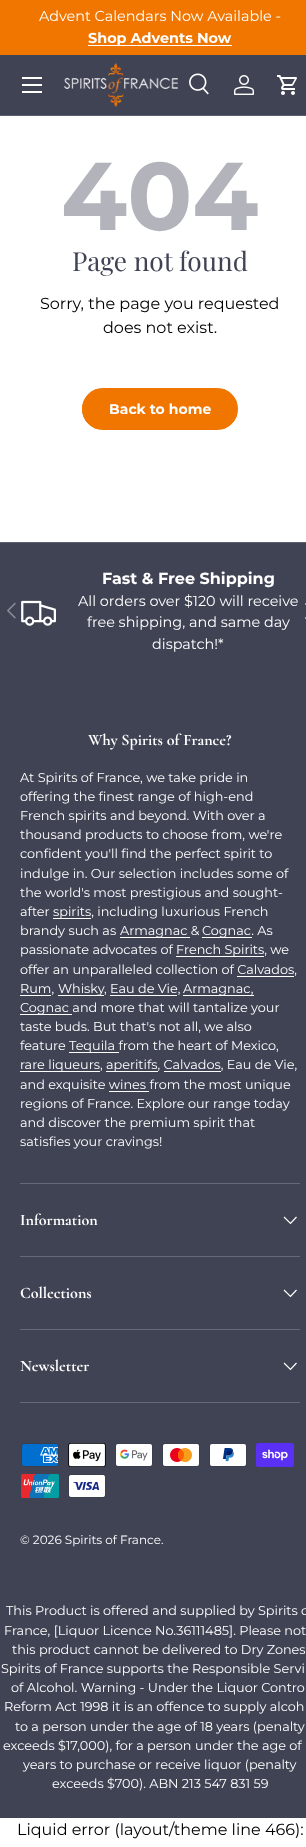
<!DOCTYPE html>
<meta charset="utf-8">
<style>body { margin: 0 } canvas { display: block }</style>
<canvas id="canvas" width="306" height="1847"></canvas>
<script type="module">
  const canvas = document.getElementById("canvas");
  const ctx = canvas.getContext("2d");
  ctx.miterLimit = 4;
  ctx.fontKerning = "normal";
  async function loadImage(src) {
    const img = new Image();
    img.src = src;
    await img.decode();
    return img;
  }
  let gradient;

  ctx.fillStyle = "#ffffff";
  ctx.fillRect(0, 0, 306, 1847);
  ctx.fillStyle = "#f17600";
  ctx.fillRect(0, 0, 306, 55);
  ctx.font = "14.4px Montserrat";
  ctx.fillStyle = "#ffffff";
  ctx.fillText("Advent Calendars Now Available -", 39, 21);
  ctx.fillRect(88, 45, 144, 1);
  ctx.font = "bold 14.4px Montserrat";
  ctx.fillText("Shop Advents Now", 88, 43);
  ctx.fillStyle = "#404354";
  ctx.fillRect(0, 55, 306, 60);
  ctx.fillStyle = "#5d5f6e";
  ctx.fillRect(0, 115, 306, 1);
  ctx.fillStyle = "#ffffff";
  ctx.fillRect(22, 77, 20, 2);
  ctx.fillRect(22, 91, 20, 2);
  ctx.fillRect(22, 84, 20, 2);
  ctx.drawImage(await loadImage("img1.png"), 64, 63, 114, 44);
  ctx.drawImage(await loadImage("img2.png"), 189, 73, 20, 22);
  ctx.drawImage(await loadImage("img3.png"), 234, 75, 20, 20);
  ctx.drawImage(await loadImage("img4.png"), 277, 75, 20, 20);
  ctx.font = "bold 96px Montserrat";
  ctx.fillStyle = "#b3b4bb";
  ctx.fillText("404", 61, 230);
  ctx.font = "26.25px Playfair Display";
  ctx.fillStyle = "#404354";
  ctx.fillText("Page not found", 72, 271);
  ctx.font = "16px Montserrat";
  ctx.fillStyle = "#000000";
  ctx.fillText("Sorry, the page you requested", 40, 309);
  ctx.fillText("does not exist.", 103, 333);
  ctx.save();
  ctx.beginPath();
  ctx.roundRect(82, 388, 156, 42, 21);
  ctx.clip();
  gradient = ctx.createLinearGradient(-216, 354, 228, 464);
  gradient.addColorStop(0.6, "#f49334");
  gradient.addColorStop(0.6, "#f17600");
  gradient.addColorStop(1, "#f17600");
  ctx.fillStyle = gradient;
  ctx.fillRect(82, 389, 155, 40);
  ctx.restore();
  ctx.beginPath();
  ctx.roundRect(82.5, 388.5, 155, 41, 20.5);
  ctx.strokeStyle = "#f17600";
  ctx.stroke();
  ctx.font = "bold 14px Montserrat";
  ctx.fillStyle = "#ffffff";
  ctx.fillText("Back to home", 109, 414);
  ctx.fillStyle = "#404354";
  ctx.fillRect(0, 543, 306, 1275);
  ctx.fillStyle = "#5d5f6e";
  ctx.fillRect(0, 542, 306, 1);
  ctx.drawImage(await loadImage("img5.png"), 21, 600, 35, 26);
  ctx.font = "bold 16px Montserrat";
  ctx.fillStyle = "#ffffff";
  ctx.fillText("Fast & Free Shipping", 102, 584);
  ctx.font = "14.4px Montserrat";
  ctx.fillText("All orders over $120 will receive", 78, 606);
  ctx.fillText("free shipping, and same day", 87, 627);
  ctx.fillText("dispatch!*", 152, 649);
  ctx.drawImage(await loadImage("img6.png"), 7, 602, 9, 17);
  ctx.beginPath();
  ctx.moveTo(305.5, 603.5);
  ctx.lineTo(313, 611);
  ctx.lineTo(305.5, 618.5);
  ctx.strokeStyle = "#ffffff";
  ctx.lineWidth = 1.5;
  ctx.stroke();
  ctx.font = "bold 16px Cormorant";
  ctx.fillText("Why Spirits of France?", 88, 745);
  ctx.font = "12.8px Montserrat";
  ctx.fillText("At Spirits of France, we take pride in", 20, 782);
  ctx.fillText("offering the finest range of high-end", 20, 801);
  ctx.fillText("French spirits and beyond. With over a", 20, 820);
  ctx.fillText("thousand products to choose from, we're", 20, 839);
  ctx.fillText("confident you'll find the perfect spirit to", 20, 858);
  ctx.fillText("indulge in. Our selection includes some of", 20, 878);
  ctx.fillText("the world's most prestigious and sought-", 20, 897);
  ctx.fillText("after", 20, 916);
  ctx.fillRect(53, 918, 38, 1);
  ctx.fillText("spirits, including luxurious French", 53, 916);
  ctx.fillText("brandy such as", 20, 935);
  ctx.fillRect(120, 937, 70, 1);
  ctx.fillText("Armagnac &", 120, 935);
  ctx.fillRect(202, 937, 50, 1);
  ctx.fillText("Cognac. As", 202, 935);
  ctx.fillText("passionate advocates of", 20, 954);
  ctx.fillRect(176, 956, 88, 1);
  ctx.fillText("French Spirits, we", 176, 954);
  ctx.fillText("offer an unparalleled collection of Calvados,", 20, 974);
  ctx.fillRect(237, 976, 57, 1);
  ctx.fillText("Rum,", 20, 993);
  ctx.fillRect(20, 995, 31, 1);
  ctx.fillRect(58, 995, 46, 1);
  ctx.fillText("Whisky", 58, 993);
  ctx.fillText(", Eau de Vie,", 104, 993);
  ctx.fillRect(183, 995, 71, 1);
  ctx.fillText("Armagnac,", 183, 993);
  ctx.fillRect(110, 995, 67, 1);
  ctx.fillRect(20, 1014, 52, 1);
  ctx.fillText("Cognac and more that will tantalize your", 20, 1012);
  ctx.fillText("taste buds. But that's not all, we also", 20, 1031);
  ctx.fillText("feature", 20, 1050);
  ctx.fillRect(69, 1052, 50, 1);
  ctx.fillText("Tequila from the heart of Mexico,", 69, 1050);
  ctx.fillRect(20, 1071, 80, 1);
  ctx.fillText("rare liqueurs,", 20, 1069);
  ctx.fillRect(106, 1071, 52, 1);
  ctx.fillText("aperitifs, Calvados, Eau de Vie,", 106, 1069);
  ctx.fillRect(164, 1071, 57, 1);
  ctx.fillText("and exquisite wines from the most unique", 20, 1089);
  ctx.fillRect(109, 1091, 40, 1);
  ctx.fillText("regions of France. Explore our range today", 20, 1108);
  ctx.fillText("and discover the premium spirit that", 20, 1127);
  ctx.fillText("satisfies your cravings!", 20, 1146);
  ctx.fillStyle = "#666976";
  ctx.fillRect(20, 1183, 280, 1);
  ctx.fillRect(20, 1256, 280, 1);
  ctx.font = "bold 16px Cormorant";
  ctx.fillStyle = "#ffffff";
  ctx.fillText("Information", 20, 1225);
  ctx.beginPath();
  ctx.moveTo(296.5, 1217);
  ctx.lineTo(290.5, 1223.5);
  ctx.lineTo(284, 1217);
  ctx.lineWidth = 1.2;
  ctx.stroke();
  ctx.fillStyle = "#666976";
  ctx.fillRect(20, 1329, 280, 1);
  ctx.fillStyle = "#ffffff";
  ctx.fillText("Collections", 20, 1298);
  ctx.beginPath();
  ctx.moveTo(296.5, 1290);
  ctx.lineTo(290.5, 1296.5);
  ctx.lineTo(284, 1290);
  ctx.stroke();
  ctx.fillStyle = "#666976";
  ctx.fillRect(20, 1402, 280, 1);
  ctx.fillStyle = "#ffffff";
  ctx.fillText("Newsletter", 20, 1371);
  ctx.beginPath();
  ctx.moveTo(296.5, 1363);
  ctx.lineTo(290.5, 1369.5);
  ctx.lineTo(284, 1363);
  ctx.stroke();
  ctx.drawImage(await loadImage("img7.png"), 21, 1443, 38, 24);
  ctx.drawImage(await loadImage("img8.png"), 68, 1443, 38, 24);
  ctx.drawImage(await loadImage("img9.png"), 115, 1443, 38, 24);
  ctx.drawImage(await loadImage("img10.png"), 162, 1443, 38, 24);
  ctx.drawImage(await loadImage("img11.png"), 209, 1443, 38, 24);
  ctx.drawImage(await loadImage("img12.png"), 256, 1443, 38, 24);
  ctx.drawImage(await loadImage("img13.png"), 21, 1474, 38, 24);
  ctx.drawImage(await loadImage("img14.png"), 68, 1474, 38, 24);
  ctx.font = "12px Montserrat";
  ctx.fillText("© 2026 Spirits of France.", 20, 1544);
  ctx.font = "12.8px Montserrat";
  ctx.fillText("This Product is offered and supplied by Spirits o", 6, 1615);
  ctx.fillText("France, [Liquor Licence No.36111485]. Please not", 4, 1635);
  ctx.fillText("this product cannot be delivered to Dry Zones", 12, 1654);
  ctx.fillText("Spirits of France supports the Responsible Servi", 1, 1673);
  ctx.fillText("of Alcohol. Warning - Under the Liquor Contro", 11, 1692);
  ctx.fillText("Reform Act 1998 it is an offence to supply alcoh", 4, 1711);
  ctx.fillText("to a person under the age of 18 years (penalty", 15, 1731);
  ctx.fillText("exceeds $17,000), for a person under the age of", 3, 1750);
  ctx.fillText("years to purchase or receive liquor (penalty", 23, 1769);
  ctx.fillText("exceeds $700). ABN 213 547 831 59", 52, 1788);
  ctx.font = "16px Montserrat";
  ctx.fillStyle = "#000000";
  ctx.fillText("Liquid error (layout/theme line 466):", 17, 1835);
</script>
